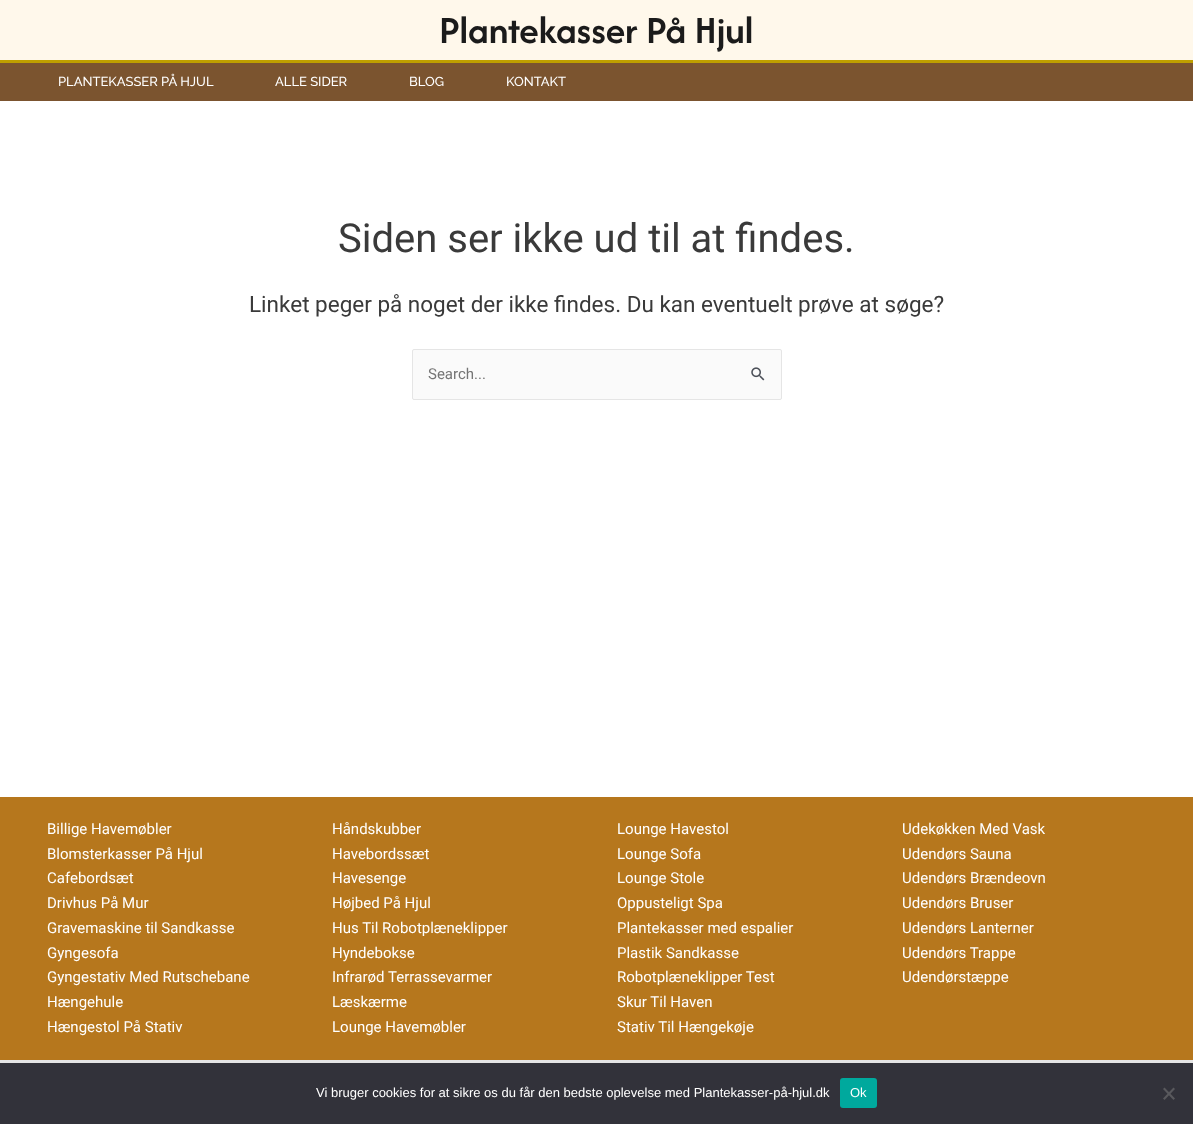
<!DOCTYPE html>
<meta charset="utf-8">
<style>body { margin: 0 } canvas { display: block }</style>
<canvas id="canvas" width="1193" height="1124"></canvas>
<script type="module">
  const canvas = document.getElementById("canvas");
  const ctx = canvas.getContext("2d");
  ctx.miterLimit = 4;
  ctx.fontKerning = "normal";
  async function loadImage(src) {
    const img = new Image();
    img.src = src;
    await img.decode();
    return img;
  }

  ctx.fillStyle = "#ffffff";
  ctx.fillRect(0, 0, 1193, 1124);
  ctx.fillStyle = "#fff8eb";
  ctx.fillRect(0, 0, 1193, 60);
  ctx.font = "600 40px Afacad";
  ctx.fillStyle = "#1b1b1b";
  ctx.fillText("Plantekasser På Hjul", 439, 43);
  ctx.fillStyle = "#7b542f";
  ctx.fillRect(0, 63, 1193, 38);
  ctx.fillStyle = "#bf9f00";
  ctx.fillRect(0, 60, 1193, 3);
  ctx.font = "500 13px Raleway";
  ctx.fillStyle = "#ffffff";
  ctx.fillText("PLANTEKASSER PÅ HJUL", 58, 86);
  ctx.fillText("ALLE SIDER", 275, 86);
  ctx.fillText("BLOG", 409, 86);
  ctx.fillText("KONTAKT", 506, 86);
  ctx.font = "40px Roboto";
  ctx.fillStyle = "#3a3a3a";
  ctx.fillText("Siden ser ikke ud til at findes.", 338, 252);
  ctx.font = "22.5px Roboto";
  ctx.fillText("Linket peger på noget der ikke findes. Du kan eventuelt prøve at søge?", 249, 312);
  ctx.fillStyle = "#fafafa";
  ctx.beginPath();
  ctx.roundRect(412.5, 349.5, 369, 50, 1.5);
  ctx.fill();
  ctx.strokeStyle = "#e5e5e5";
  ctx.stroke();
  ctx.font = "15px Roboto";
  ctx.fillStyle = "#757575";
  ctx.fillText("Search...", 428, 379);
  ctx.drawImage(await loadImage("img1.png"), 751, 367, 14, 14);
  ctx.fillStyle = "#b6771d";
  ctx.fillRect(0, 797, 1193, 263);
  ctx.fillStyle = "#ffffff";
  ctx.fillText("Billige Havemøbler", 47, 834);
  ctx.fillText("Blomsterkasser På Hjul", 47, 859);
  ctx.fillText("Cafebordsæt", 47, 883);
  ctx.fillText("Drivhus På Mur", 47, 908);
  ctx.fillText("Gravemaskine til Sandkasse", 47, 933);
  ctx.fillText("Gyngesofa", 47, 958);
  ctx.fillText("Gyngestativ Med Rutschebane", 47, 982);
  ctx.fillText("Hængehule", 47, 1007);
  ctx.fillText("Hængestol På Stativ", 47, 1032);
  ctx.fillText("Håndskubber", 332, 834);
  ctx.fillText("Havebordssæt", 332, 859);
  ctx.fillText("Havesenge", 332, 883);
  ctx.fillText("Højbed På Hjul", 332, 908);
  ctx.fillText("Hus Til Robotplæneklipper", 332, 933);
  ctx.fillText("Hyndebokse", 332, 958);
  ctx.fillText("Infrarød Terrassevarmer", 332, 982);
  ctx.fillText("Læskærme", 332, 1007);
  ctx.fillText("Lounge Havemøbler", 332, 1032);
  ctx.fillText("Lounge Havestol", 617, 834);
  ctx.fillText("Lounge Sofa", 617, 859);
  ctx.fillText("Lounge Stole", 617, 883);
  ctx.fillText("Oppusteligt Spa", 617, 908);
  ctx.fillText("Plantekasser med espalier", 617, 933);
  ctx.fillText("Plastik Sandkasse", 617, 958);
  ctx.fillText("Robotplæneklipper Test", 617, 982);
  ctx.fillText("Skur Til Haven", 617, 1007);
  ctx.fillText("Stativ Til Hængekøje", 617, 1032);
  ctx.fillText("Udekøkken Med Vask", 902, 834);
  ctx.fillText("Udendørs Sauna", 902, 859);
  ctx.fillText("Udendørs Brændeovn", 902, 883);
  ctx.fillText("Udendørs Bruser", 902, 908);
  ctx.fillText("Udendørs Lanterner", 902, 933);
  ctx.fillText("Udendørs Trappe", 902, 958);
  ctx.fillText("Udendørstæppe", 902, 982);
  ctx.fillStyle = "#e5e5e5";
  ctx.fillRect(0, 1060, 1193, 3);
  ctx.fillStyle = "#32323a";
  ctx.fillRect(0, 1063, 1193, 61);
  ctx.font = "13px Liberation Sans";
  ctx.fillStyle = "#ffffff";
  ctx.fillText("Vi bruger cookies for at sikre os du får den bedste oplevelse med Plantekasser-på-hjul.dk", 316, 1097);
  ctx.fillStyle = "#00a99d";
  ctx.beginPath();
  ctx.roundRect(840, 1078, 37, 30, 3);
  ctx.fill();
  ctx.fillStyle = "#ffffff";
  ctx.fillText("Ok", 850, 1097);
  ctx.fillStyle = "#59595d";
  ctx.beginPath();
  ctx.moveTo(1173.5, 1087.5);
  ctx.lineTo(1175, 1089);
  ctx.lineTo(1164.5, 1100);
  ctx.lineTo(1163, 1098.5);
  ctx.closePath();
  ctx.fill();
  ctx.beginPath();
  ctx.moveTo(1163, 1089);
  ctx.lineTo(1164.5, 1087.5);
  ctx.lineTo(1175, 1098.5);
  ctx.lineTo(1173.5, 1100);
  ctx.closePath();
  ctx.fill();
</script>
